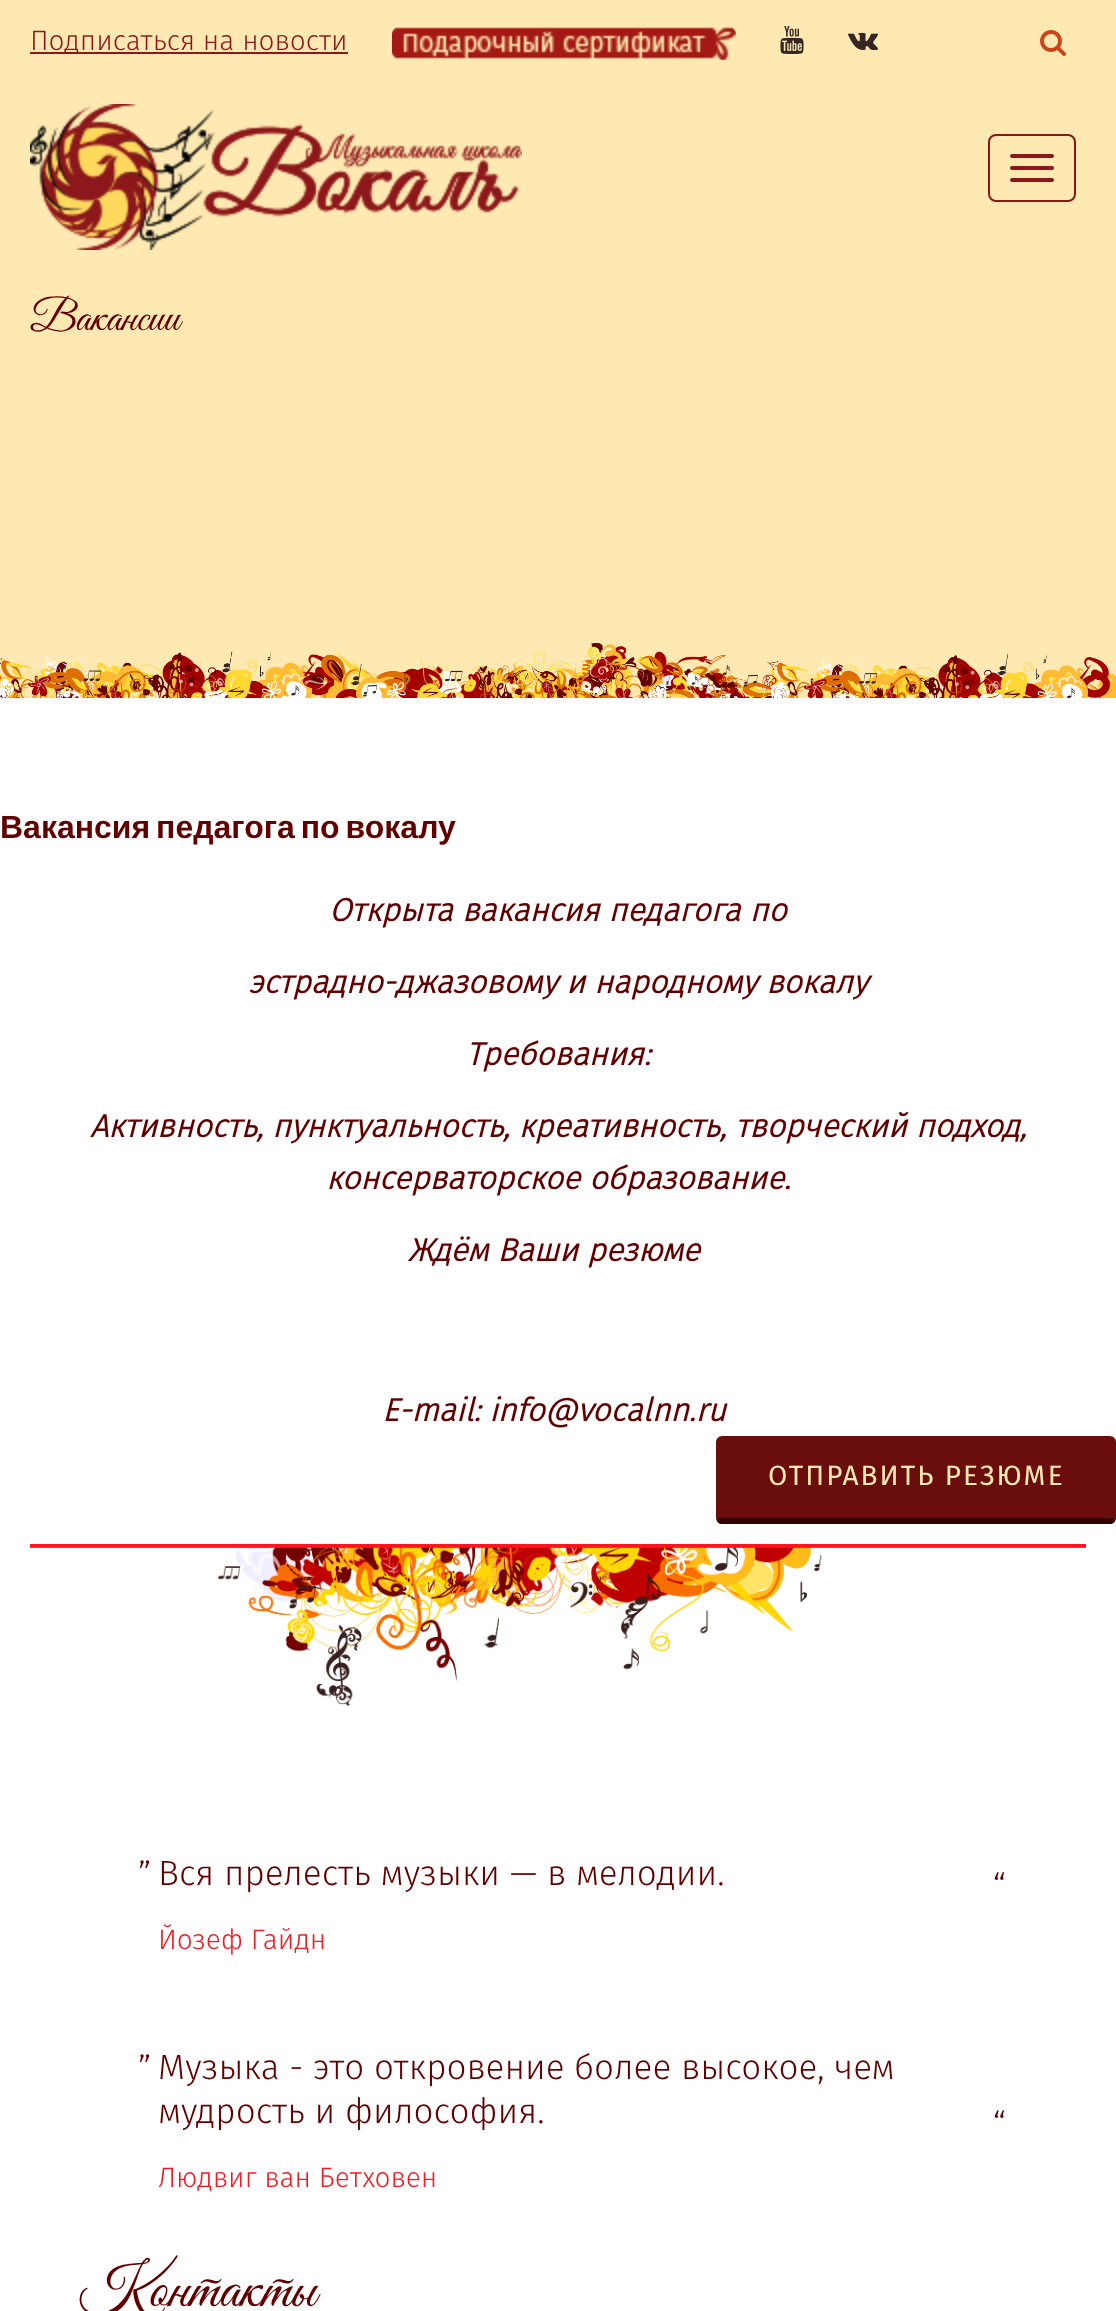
<!DOCTYPE html>
<meta charset="utf-8">
<style>body { margin: 0 } canvas { display: block }</style>
<canvas id="canvas" width="1116" height="2311"></canvas>
<script type="module">
  const canvas = document.getElementById("canvas");
  const ctx = canvas.getContext("2d");
  ctx.miterLimit = 4;
  ctx.fontKerning = "normal";
  async function loadImage(src) {
    const img = new Image();
    img.src = src;
    await img.decode();
    return img;
  }

  ctx.fillStyle = "#ffe9b2";
  ctx.fillRect(0, 0, 1116, 2311);
  ctx.drawImage(await loadImage("img1.png"), 1040, 30, 26, 26);
  ctx.drawImage(await loadImage("img2.png"), 30, 104, 492, 146);
  ctx.beginPath();
  ctx.roundRect(989, 135, 86, 66, 7);
  ctx.strokeStyle = "#8d181b";
  ctx.lineWidth = 2;
  ctx.stroke();
  ctx.fillStyle = "#8d181b";
  ctx.beginPath();
  ctx.roundRect(1010, 154, 44, 4, 2);
  ctx.fill();
  ctx.beginPath();
  ctx.roundRect(1010, 166, 44, 4, 2);
  ctx.fill();
  ctx.beginPath();
  ctx.roundRect(1010, 178, 44, 4, 2);
  ctx.fill();
  ctx.fillRect(30, 52, 318, 2);
  ctx.font = "300 28px Fira Sans";
  ctx.fillText("Подписаться на новости", 30, 50);
  ctx.drawImage(await loadImage("img3.png"), 392, 27, 344, 33);
  ctx.drawImage(await loadImage("img4.png"), 780, 26, 24, 28);
  ctx.drawImage(await loadImage("img5.png"), 848, 32, 30, 18);
  ctx.drawImage(await loadImage("img6.png"), 0, 643, 1116, 55);
  ctx.font = "44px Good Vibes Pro";
  ctx.fillStyle = "#620000";
  ctx.fillText("Вакансии", 30, 330);
  ctx.fillStyle = "#ffffff";
  ctx.fillRect(0, 698, 1116, 1613);
  ctx.wordSpacing = "-3px";
  ctx.font = "bold 32px Liberation Sans";
  ctx.fillStyle = "#620000";
  ctx.fillText("Вакансия педагога по вокалу", 0, 838);
  ctx.wordSpacing = "0px";
  ctx.font = "italic bold 32px Fira Sans";
  ctx.fillText("Открыта вакансия педагога по", 329, 921);
  ctx.fillText("эстрадно-джазовому и народному вокалу", 248, 993);
  ctx.fillText("Требования:", 466, 1065);
  ctx.fillText("Активность, пунктуальность, креативность, творческий подход,", 90, 1137);
  ctx.fillText("консерваторское образование.", 326, 1189);
  ctx.fillText("Ждём Ваши резюме", 408, 1261);
  ctx.fillText("E-mail: info@vocalnn.ru", 382, 1421);
  ctx.fillStyle = "#6a0d0d";
  ctx.beginPath();
  ctx.roundRect(716, 1436, 400, 88, 6);
  ctx.fill();
  ctx.fillStyle = "#350000";
  ctx.beginPath();
  ctx.moveTo(722, 1524);
  ctx.lineTo(1110, 1524);
  ctx.bezierCurveTo(1112, 1524, 1114, 1523, 1115, 1521);
  ctx.lineTo(1114, 1518);
  ctx.lineTo(718, 1518);
  ctx.lineTo(717, 1521);
  ctx.bezierCurveTo(718, 1523, 720, 1524, 722, 1524);
  ctx.closePath();
  ctx.fill();
  ctx.letterSpacing = "2px";
  ctx.font = "28px Fira Sans";
  ctx.fillStyle = "#ffe9b2";
  ctx.fillText("ОТПРАВИТЬ РЕЗЮМЕ", 768, 1485);
  ctx.drawImage(await loadImage("img7.png"), 30, 1544, 1056, 162);
  ctx.letterSpacing = "0px";
  ctx.font = "300 36px Fira Sans";
  ctx.fillStyle = "#620000";
  ctx.fillText("”", 138, 1887);
  ctx.font = "300 35px Fira Sans";
  ctx.fillText("Вся прелесть музыки — в мелодии.", 158, 1885);
  ctx.font = "300 36px Fira Sans";
  ctx.fillText("“", 993, 1899);
  ctx.font = "300 28px Fira Sans";
  ctx.fillStyle = "#ed1c24";
  ctx.fillText("Йозеф Гайдн", 158, 1949);
  ctx.font = "300 36px Fira Sans";
  ctx.fillStyle = "#620000";
  ctx.fillText("”", 138, 2081);
  ctx.font = "300 35px Fira Sans";
  ctx.fillText("Музыка - это откровение более высокое, чем", 158, 2079);
  ctx.fillText("мудрость и философия.", 158, 2123);
  ctx.font = "300 36px Fira Sans";
  ctx.fillText("“", 993, 2137);
  ctx.font = "300 28px Fira Sans";
  ctx.fillStyle = "#ed1c24";
  ctx.fillText("Людвиг ван Бетховен", 158, 2187);
  ctx.font = "60px Good Vibes Pro";
  ctx.fillStyle = "#620000";
  ctx.fillText("Контакты", 80, 2306);
</script>
